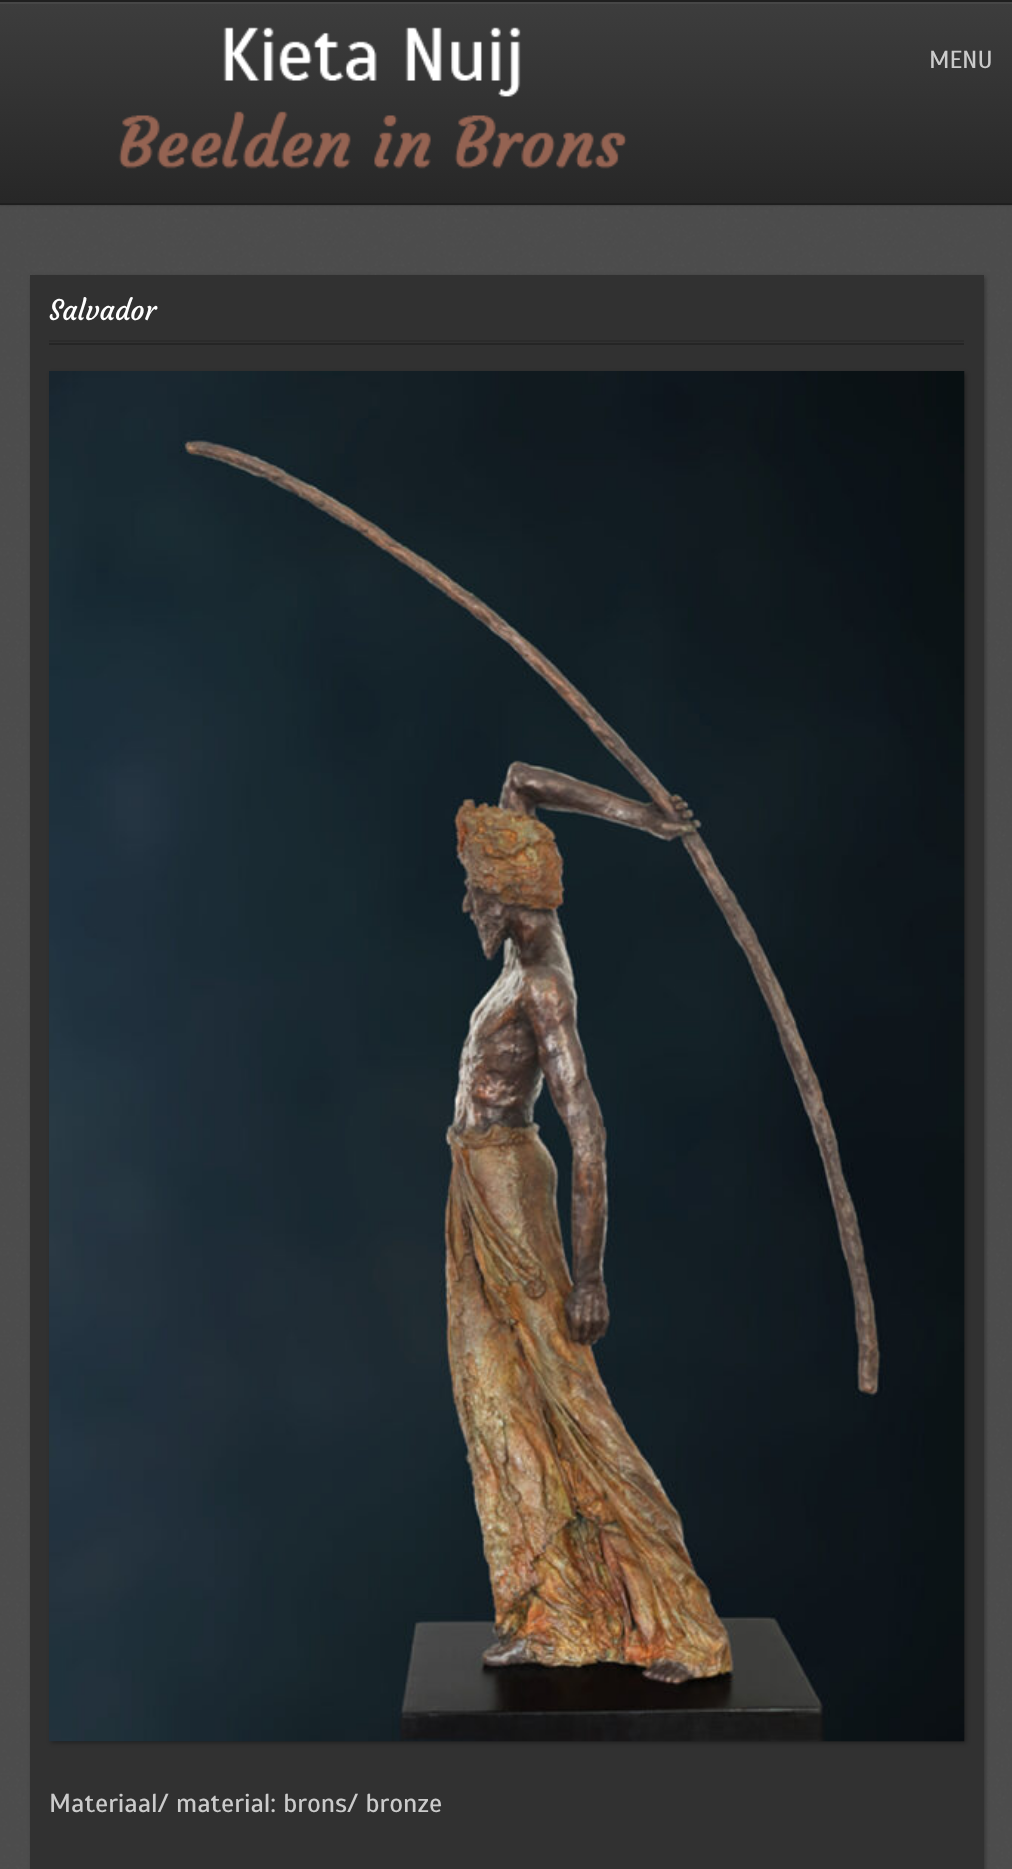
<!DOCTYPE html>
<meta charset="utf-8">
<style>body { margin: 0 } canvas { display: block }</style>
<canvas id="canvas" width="1012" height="1869"></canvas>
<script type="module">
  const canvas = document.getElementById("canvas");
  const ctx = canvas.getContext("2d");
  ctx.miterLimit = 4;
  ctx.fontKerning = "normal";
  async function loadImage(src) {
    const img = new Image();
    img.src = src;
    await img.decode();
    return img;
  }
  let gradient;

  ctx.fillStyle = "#6a6a6a";
  ctx.fillRect(0, 0, 1012, 1869);
  ctx.drawImage(await loadImage("img1.png"), 0, 205, 1012, 1664);
  ctx.fillStyle = "rgba(0, 0, 0, 0.3)";
  ctx.filter = "blur(1px)";
  ctx.beginPath();
  ctx.rect(0, 0, 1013, 205);
  ctx.fill();
  ctx.filter = "none";
  gradient = ctx.createLinearGradient(507, 1.7, 507, 203);
  gradient.addColorStop(0, "#3d3d3d");
  gradient.addColorStop(1, "#272727");
  ctx.fillStyle = gradient;
  ctx.fillRect(0, 4, 1012, 199);
  ctx.fillStyle = "#474747";
  ctx.fillRect(0, 2, 1012, 2);
  ctx.fillStyle = "#1f1f1f";
  ctx.fillRect(0, 0, 1012, 2);
  ctx.fillRect(0, 203, 1012, 2);
  ctx.drawImage(await loadImage("img2.png"), 118, 27, 509, 142);
  ctx.font = "24.5px Scada";
  ctx.fillStyle = "#cbcbcb";
  ctx.fillText("MENU", 929, 68);
  ctx.fillStyle = "rgba(43, 43, 43, 0.8)";
  ctx.filter = "blur(2px)";
  ctx.beginPath();
  ctx.rect(32, 277, 953, 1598);
  ctx.fill();
  ctx.filter = "none";
  ctx.fillStyle = "#313131";
  ctx.fillRect(30, 275, 954, 1594);
  ctx.font = "28px Courgette";
  ctx.fillStyle = "#ffffff";
  ctx.fillText("Salvador", 49, 320);
  ctx.fillStyle = "#2b2b2b";
  ctx.fillRect(49, 340, 915, 2);
  ctx.fillStyle = "#252525";
  ctx.fillRect(49, 343, 915, 2);
  ctx.fillStyle = "rgba(0, 0, 0, 0.3)";
  ctx.filter = "blur(2px)";
  ctx.beginPath();
  ctx.rect(51, 373, 915, 1370);
  ctx.fill();
  ctx.filter = "none";
  ctx.drawImage(await loadImage("img3.png"), 49, 371, 916, 1371);
  ctx.font = "26.25px Scada";
  ctx.fillStyle = "#cbcbcb";
  ctx.fillText("Materiaal/ material: brons/ bronze", 49, 1812);
</script>
